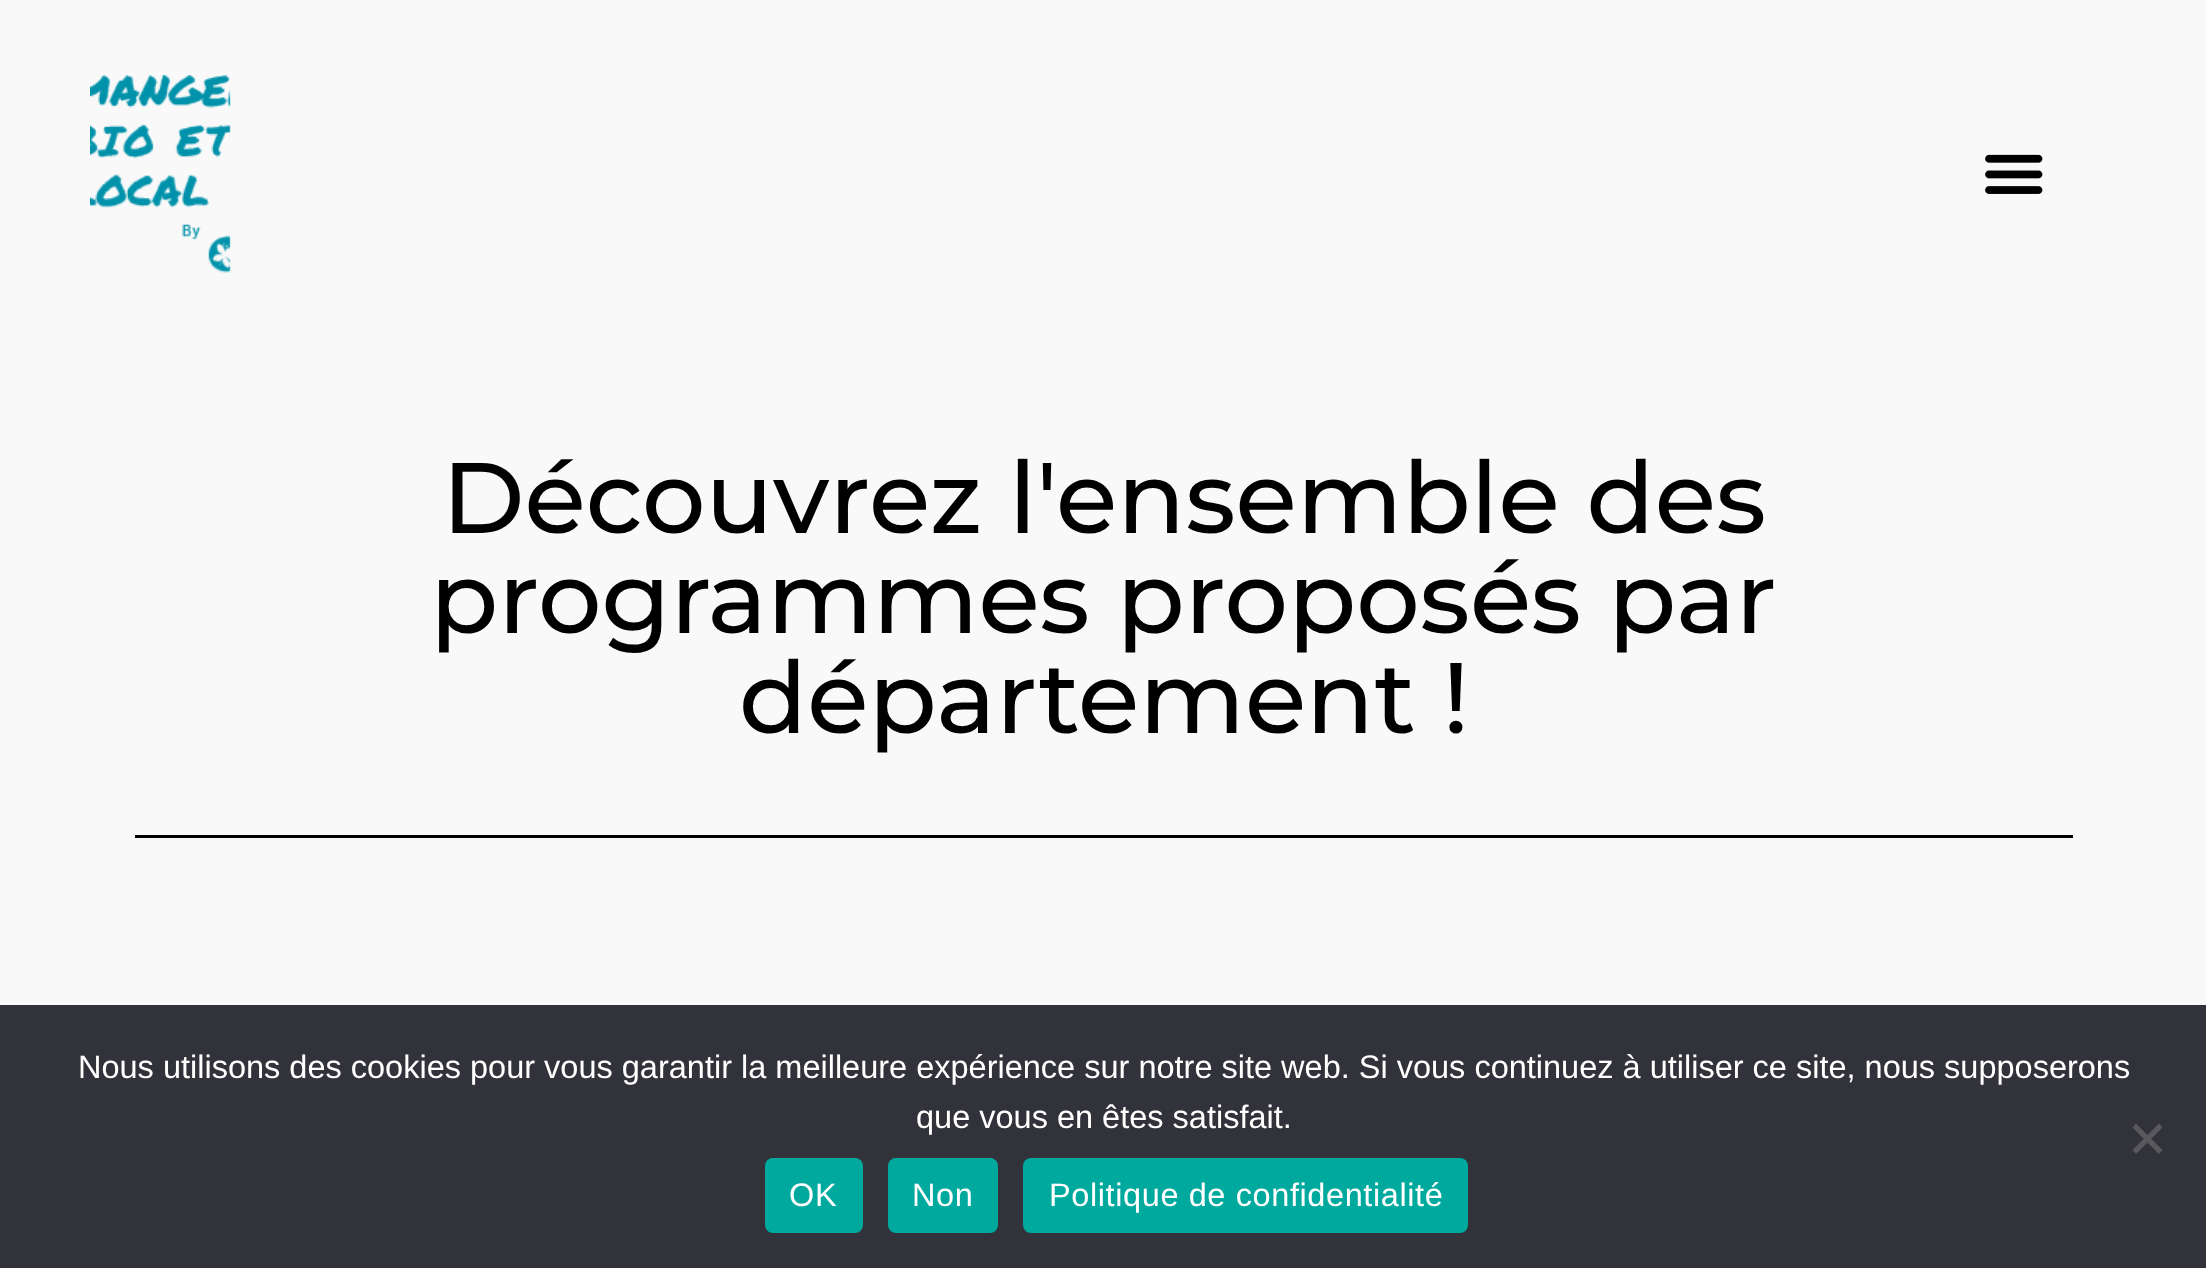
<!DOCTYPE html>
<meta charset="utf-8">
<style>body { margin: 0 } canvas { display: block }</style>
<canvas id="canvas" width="2206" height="1268"></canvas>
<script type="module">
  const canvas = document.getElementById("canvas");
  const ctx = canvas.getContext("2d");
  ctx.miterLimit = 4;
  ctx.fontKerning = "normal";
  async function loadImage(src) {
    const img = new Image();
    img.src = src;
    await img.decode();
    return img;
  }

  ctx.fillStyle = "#f9f9f9";
  ctx.fillRect(0, 0, 2206, 1268);
  ctx.drawImage(await loadImage("img1.png"), 90, 75, 141, 198);
  ctx.drawImage(await loadImage("img2.png"), 1985, 154, 58, 40);
  ctx.font = "500 100px Montserrat";
  ctx.fillStyle = "#000000";
  ctx.fillText("Découvrez l'ensemble des", 442, 533);
  ctx.fillText("programmes proposés par", 430, 633);
  ctx.fillText("département !", 739, 733);
  ctx.fillRect(135, 835, 1938, 3);
  ctx.fillStyle = "#32323a";
  ctx.fillRect(0, 1005, 2206, 263);
  ctx.font = "32.5px Liberation Sans";
  ctx.fillStyle = "#ffffff";
  ctx.fillText("Nous utilisons des cookies pour vous garantir la meilleure expérience sur notre site web. Si vous continuez à utiliser ce site, nous supposerons", 78, 1078);
  ctx.fillText("que vous en êtes satisfait.", 916, 1128);
  ctx.fillStyle = "#59595d";
  ctx.beginPath();
  ctx.moveTo(2159, 1123.5);
  ctx.lineTo(2162.5, 1127.5);
  ctx.lineTo(2136, 1154);
  ctx.lineTo(2132.5, 1150);
  ctx.closePath();
  ctx.fill();
  ctx.beginPath();
  ctx.moveTo(2132.5, 1127.5);
  ctx.lineTo(2136, 1123.5);
  ctx.lineTo(2162.5, 1150);
  ctx.lineTo(2159, 1154);
  ctx.closePath();
  ctx.fill();
  ctx.fillStyle = "#00a99d";
  ctx.beginPath();
  ctx.roundRect(765, 1158, 98, 75, 8);
  ctx.fill();
  ctx.letterSpacing = "0.6px";
  ctx.fillStyle = "#ffffff";
  ctx.fillText("OK", 789, 1206);
  ctx.fillStyle = "#00a99d";
  ctx.beginPath();
  ctx.roundRect(888, 1158, 110, 75, 8);
  ctx.fill();
  ctx.fillStyle = "#ffffff";
  ctx.fillText("Non", 912, 1206);
  ctx.fillStyle = "#00a99d";
  ctx.beginPath();
  ctx.roundRect(1023, 1158, 445, 75, 8);
  ctx.fill();
  ctx.fillStyle = "#ffffff";
  ctx.fillText("Politique de confidentialité", 1049, 1206);
</script>
